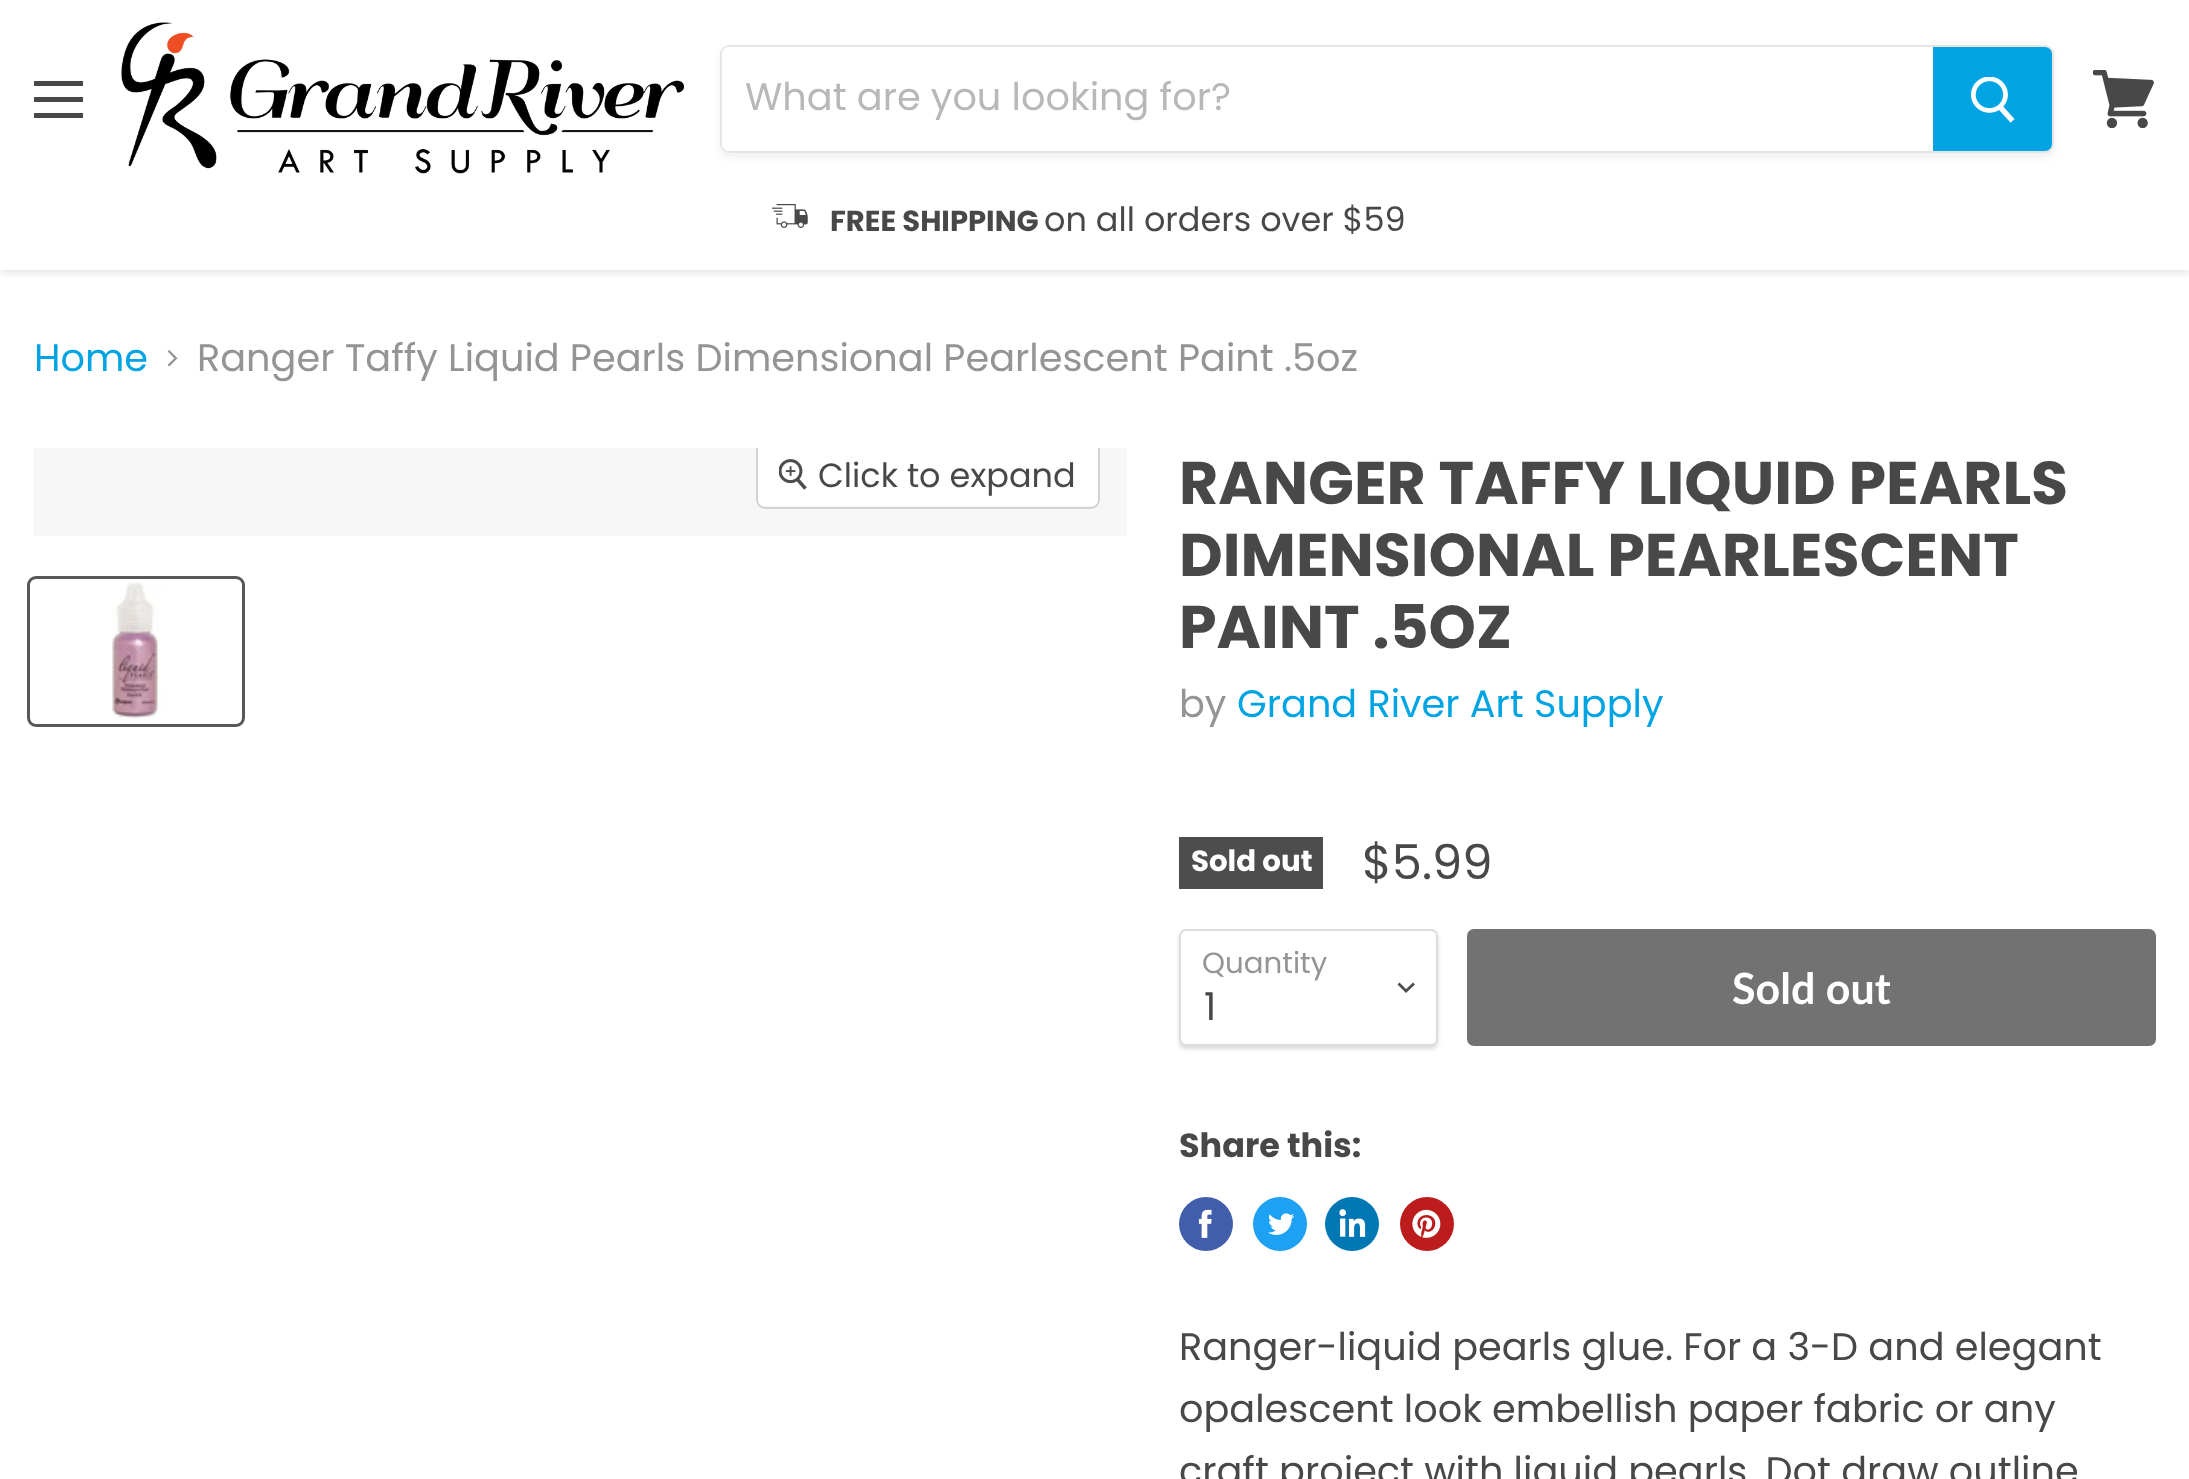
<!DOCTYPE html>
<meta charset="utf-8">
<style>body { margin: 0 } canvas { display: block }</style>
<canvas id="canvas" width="2189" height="1479"></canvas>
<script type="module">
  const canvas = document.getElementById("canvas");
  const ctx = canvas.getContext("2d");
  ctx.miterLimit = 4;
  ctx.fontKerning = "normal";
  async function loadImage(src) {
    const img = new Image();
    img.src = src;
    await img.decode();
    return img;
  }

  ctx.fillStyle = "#ffffff";
  ctx.fillRect(0, 0, 2189, 1479);
  ctx.save();
  ctx.beginPath();
  ctx.rect(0, 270, 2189, 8);
  ctx.clip();
  ctx.fillStyle = "rgba(127, 127, 127, 0.25)";
  ctx.filter = "blur(4.5px)";
  ctx.beginPath();
  ctx.rect(0, 2, 2189, 270);
  ctx.fill();
  ctx.filter = "none";
  ctx.restore();
  ctx.fillStyle = "#484848";
  ctx.fillRect(34, 81, 49, 5);
  ctx.fillRect(34, 97, 49, 5);
  ctx.fillRect(34, 113, 49, 5);
  ctx.drawImage(await loadImage("img1.png"), 121, 22, 563, 152);
  ctx.save();
  ctx.beginPath();
  ctx.moveTo(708, 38);
  ctx.lineTo(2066, 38);
  ctx.lineTo(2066, 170);
  ctx.lineTo(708, 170);
  ctx.closePath();
  ctx.moveTo(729, 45);
  ctx.lineTo(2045, 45);
  ctx.bezierCurveTo(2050, 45, 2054, 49, 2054, 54);
  ctx.lineTo(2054, 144);
  ctx.bezierCurveTo(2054, 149, 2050, 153, 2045, 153);
  ctx.lineTo(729, 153);
  ctx.bezierCurveTo(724, 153, 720, 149, 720, 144);
  ctx.lineTo(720, 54);
  ctx.bezierCurveTo(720, 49, 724, 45, 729, 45);
  ctx.closePath();
  ctx.clip("evenodd");
  ctx.fillStyle = "rgba(127, 127, 127, 0.11)";
  ctx.filter = "blur(3.5px)";
  ctx.beginPath();
  ctx.roundRect(720, 50, 1334, 108, 9);
  ctx.fill();
  ctx.filter = "none";
  ctx.restore();
  ctx.beginPath();
  ctx.roundRect(721, 46, 1332, 106, 8);
  ctx.strokeStyle = "rgba(127, 127, 127, 0.2)";
  ctx.lineWidth = 2;
  ctx.stroke();
  ctx.fillStyle = "#ffffff";
  ctx.beginPath();
  ctx.roundRect(722, 47, 1211, 104, [7, 0, 0, 7]);
  ctx.fill();
  ctx.font = "38.25px Poppins";
  ctx.fillStyle = "#b8b8b8";
  ctx.fillText("What are you looking for?", 745, 110);
  ctx.fillStyle = "#00a4e3";
  ctx.beginPath();
  ctx.roundRect(1934, 48, 117, 102, [0, 6, 6, 0]);
  ctx.fill();
  ctx.strokeStyle = "#00a4e3";
  ctx.stroke();
  ctx.drawImage(await loadImage("img2.png"), 1971, 77, 44, 46);
  ctx.drawImage(await loadImage("img3.png"), 772, 204, 36, 24);
  ctx.font = "bold 29px Poppins";
  ctx.fillStyle = "#484848";
  ctx.fillText("FREE SHIPPING", 830, 231);
  ctx.font = "33.5px Poppins";
  ctx.fillText("on all orders over $59", 1044, 231);
  ctx.drawImage(await loadImage("img4.png"), 2093, 70, 61, 58);
  ctx.font = "38.25px Poppins";
  ctx.fillStyle = "#00a4e3";
  ctx.fillText("Home", 34, 371);
  ctx.drawImage(await loadImage("img5.png"), 167, 350, 11, 17);
  ctx.fillStyle = "#949494";
  ctx.fillText("Ranger Taffy Liquid Pearls Dimensional Pearlescent Paint .5oz", 197, 371);
  ctx.fillStyle = "#f7f7f7";
  ctx.fillRect(34, 448, 1093, 88);
  ctx.save();
  ctx.beginPath();
  ctx.rect(34, 448, 1093, 88);
  ctx.clip();
  ctx.beginPath();
  ctx.roundRect(757, 440, 342, 68, 8);
  ctx.strokeStyle = "#d2d2d2";
  ctx.stroke();
  ctx.restore();
  ctx.fillStyle = "rgba(255, 255, 255, 0.9)";
  ctx.beginPath();
  ctx.roundRect(758, 448, 340, 58, [0, 0, 7, 7]);
  ctx.fill();
  ctx.drawImage(await loadImage("img6.png"), 779, 459, 28, 31);
  ctx.font = "33.5px Poppins";
  ctx.fillStyle = "#484848";
  ctx.fillText("Click to expand", 818, 487);
  ctx.beginPath();
  ctx.roundRect(28.5, 577.5, 215, 148, 7.5);
  ctx.strokeStyle = "#585858";
  ctx.lineWidth = 3;
  ctx.stroke();
  ctx.drawImage(await loadImage("img7.png"), 112, 582, 50, 136);
  ctx.font = "bold 60.25px Poppins";
  ctx.fillText("RANGER TAFFY LIQUID PEARLS", 1179, 504);
  ctx.fillText("DIMENSIONAL PEARLESCENT", 1179, 576);
  ctx.fillText("PAINT .5OZ", 1179, 648);
  ctx.font = "38.25px Poppins";
  ctx.fillStyle = "#949494";
  ctx.fillText("by", 1179, 717);
  ctx.fillStyle = "#00a4e3";
  ctx.fillText("Grand River Art Supply", 1237, 717);
  ctx.fillStyle = "#4d4d4d";
  ctx.fillRect(1179, 837, 144, 52);
  ctx.font = "bold 29.25px Poppins";
  ctx.fillStyle = "#ffffff";
  ctx.fillText("Sold out", 1191, 871);
  ctx.font = "48px Poppins";
  ctx.fillStyle = "#484848";
  ctx.fillText("$5.99", 1362, 879);
  ctx.fillStyle = "rgba(0, 0, 0, 0.15)";
  ctx.filter = "blur(2px)";
  ctx.beginPath();
  ctx.roundRect(1179, 932, 259, 117, 7);
  ctx.fill();
  ctx.filter = "none";
  ctx.fillStyle = "#ffffff";
  ctx.beginPath();
  ctx.roundRect(1180, 930, 257, 115, 6);
  ctx.fill();
  ctx.strokeStyle = "#dddddd";
  ctx.lineWidth = 2;
  ctx.stroke();
  ctx.font = "29.25px Poppins";
  ctx.fillStyle = "#949494";
  ctx.fillText("Quantity", 1202, 973);
  ctx.beginPath();
  ctx.moveTo(1406, 991);
  ctx.lineTo(1413, 984.5);
  ctx.moveTo(1406, 991);
  ctx.lineTo(1399.5, 984.5);
  ctx.strokeStyle = "#4d4d4d";
  ctx.lineWidth = 2.8;
  ctx.lineCap = "square";
  ctx.stroke();
  ctx.font = "38.25px Poppins";
  ctx.fillStyle = "#484848";
  ctx.fillText("1", 1204, 1020);
  ctx.fillStyle = "#727272";
  ctx.beginPath();
  ctx.roundRect(1468, 930, 687, 115, 6);
  ctx.fill();
  ctx.strokeStyle = "#727272";
  ctx.lineWidth = 2;
  ctx.stroke();
  ctx.font = "bold 43px Lato";
  ctx.fillStyle = "#ffffff";
  ctx.fillText("Sold out", 1732, 1004);
  ctx.font = "bold 33.5px Poppins";
  ctx.fillStyle = "#484848";
  ctx.fillText("Share this:", 1179, 1157);
  ctx.fillStyle = "#425dab";
  ctx.beginPath();
  ctx.arc(1206, 1224, 27, 0, Math.PI * 2);
  ctx.fill();
  ctx.drawImage(await loadImage("img8.png"), 1198, 1209, 14, 29);
  ctx.fillStyle = "#1da1f2";
  ctx.beginPath();
  ctx.arc(1280, 1224, 27, 0, Math.PI * 2);
  ctx.fill();
  ctx.drawImage(await loadImage("img9.png"), 1268, 1213, 27, 22);
  ctx.fillStyle = "#0077b5";
  ctx.beginPath();
  ctx.arc(1352, 1224, 27, 0, Math.PI * 2);
  ctx.fill();
  ctx.drawImage(await loadImage("img10.png"), 1339, 1209, 27, 28);
  ctx.fillStyle = "#bd1c1c";
  ctx.beginPath();
  ctx.arc(1427, 1224, 27, 0, Math.PI * 2);
  ctx.fill();
  ctx.drawImage(await loadImage("img11.png"), 1412, 1209, 29, 29);
  ctx.font = "38.25px Poppins";
  ctx.fillStyle = "#484848";
  ctx.fillText("Ranger-liquid pearls glue. For a 3-D and elegant", 1179, 1360);
  ctx.fillText("opalescent look embellish paper fabric or any", 1179, 1422);
  ctx.fillText("craft project with liquid pearls. Dot draw outline", 1179, 1484);
</script>
